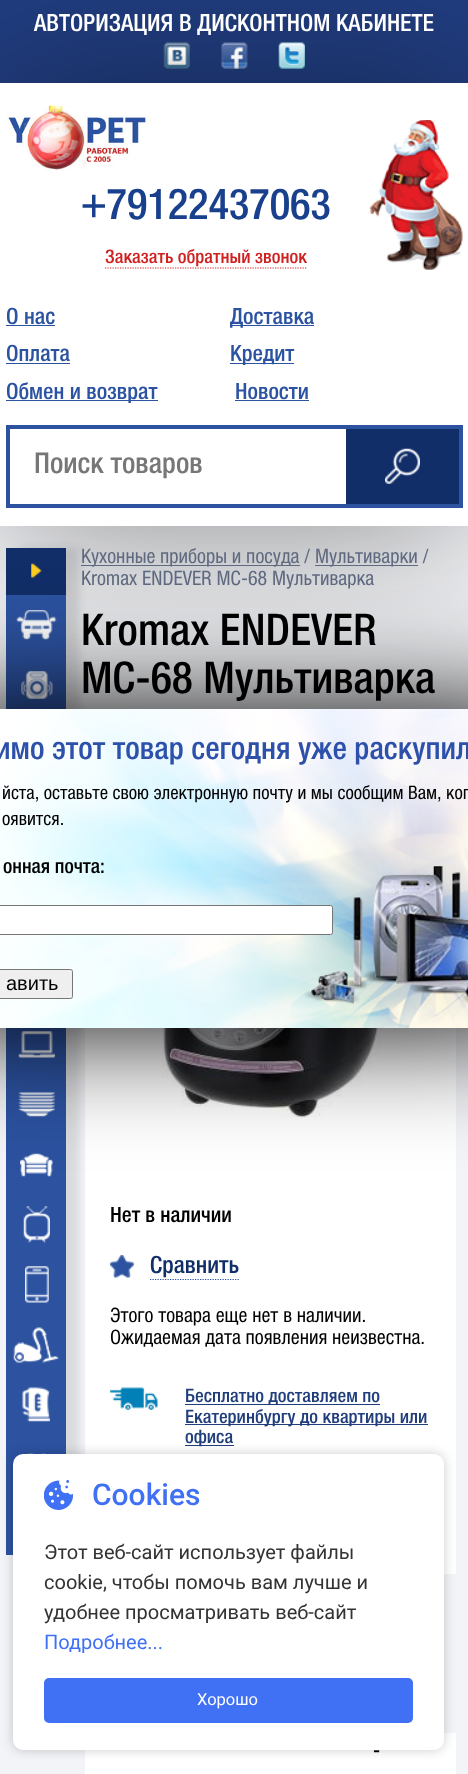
<!DOCTYPE html>
<meta charset="utf-8">
<style>body { margin: 0 } canvas { display: block }</style>
<canvas id="canvas" width="468" height="1774"></canvas>
<script type="module">
  const canvas = document.getElementById("canvas");
  const ctx = canvas.getContext("2d");
  ctx.miterLimit = 4;
  ctx.fontKerning = "normal";
  async function loadImage(src) {
    const img = new Image();
    img.src = src;
    await img.decode();
    return img;
  }

  ctx.fillStyle = "#f3f4f7";
  ctx.fillRect(0, 0, 468, 1774);
  ctx.fillStyle = "#213d7f";
  ctx.fillRect(0, 0, 468, 83);
  ctx.fillStyle = "rgba(0, 0, 0, 0.4)";
  ctx.filter = "blur(78px)";
  ctx.beginPath();
  ctx.rect(0, 95, 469, 444);
  ctx.fill();
  ctx.filter = "none";
  ctx.font = "500 23.75px 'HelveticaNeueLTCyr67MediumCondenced'";
  ctx.fillStyle = "#ffffff";
  ctx.fillText("АВТОРИЗАЦИЯ В ДИСКОНТНОМ КАБИНЕТЕ", 34, 31);
  ctx.drawImage(await loadImage("img1.png"), 163, 42, 27, 27);
  ctx.drawImage(await loadImage("img2.png"), 221, 42, 27, 27);
  ctx.drawImage(await loadImage("img3.png"), 278, 42, 27, 27);
  ctx.fillRect(0, 83, 468, 443);
  ctx.drawImage(await loadImage("img4.png"), 6, 105, 142, 66);
  ctx.font = "500 42.5px 'HelveticaNeueLTCyr67MediumCondenced'";
  ctx.fillStyle = "#19408c";
  ctx.fillText("+79122437063", 81, 219);
  ctx.font = "500 18.75px 'HelveticaNeueLTCyr67MediumCondenced'";
  ctx.fillStyle = "#d02121";
  ctx.fillText("Заказать обратный звонок", 105, 263);
  ctx.beginPath();
  ctx.moveTo(105, 268);
  ctx.lineTo(307.5, 268);
  ctx.strokeStyle = "#d02121";
  ctx.lineWidth = 1.2;
  ctx.setLineDash([1.25, 1.25]);
  ctx.stroke();
  ctx.font = "500 22.5px 'HelveticaNeueLTCyr67MediumCondenced'";
  ctx.fillStyle = "#2c53a1";
  ctx.fillText("О нас", 6, 324);
  ctx.fillRect(6, 325, 49, 1);
  ctx.fillRect(230, 325, 84, 1);
  ctx.fillText("Доставка", 230, 324);
  ctx.fillText("Оплата", 6, 361);
  ctx.fillRect(6, 363, 64, 1);
  ctx.fillRect(230, 363, 64, 1);
  ctx.fillText("Кредит", 230, 361);
  ctx.fillRect(6, 400, 152, 1);
  ctx.fillText("Обмен и возврат", 6, 399);
  ctx.fillText("Новости", 235, 399);
  ctx.fillRect(235, 400, 74, 1);
  ctx.strokeStyle = "#2c52a0";
  ctx.lineWidth = 4;
  ctx.setLineDash([]);
  ctx.strokeRect(8, 427, 453, 79);
  ctx.font = "500 28.75px 'HelveticaNeueLTCyr67MediumCondenced'";
  ctx.fillStyle = "#777777";
  ctx.fillText("Поиск товаров", 34, 473);
  ctx.fillStyle = "#122e68";
  ctx.fillRect(346, 429, 113, 75);
  ctx.drawImage(await loadImage("img5.png"), 385, 448, 35, 36);
  ctx.drawImage(await loadImage("img6.png"), 369, 120, 94, 150);
  ctx.fillStyle = "#5f6a80";
  ctx.fillRect(81, 565, 219, 1);
  ctx.fillStyle = "#ffffff";
  ctx.fillRect(85, 1028, 371, 546);
  ctx.fillStyle = "rgba(0, 0, 0, 0.1)";
  ctx.filter = "blur(4.5px)";
  ctx.beginPath();
  ctx.rect(19, 548, 60, 1007);
  ctx.fill();
  ctx.filter = "none";
  ctx.fillStyle = "#122e68";
  ctx.fillRect(6, 548, 60, 47);
  ctx.drawImage(await loadImage("img7.png"), 31, 563, 11, 15);
  ctx.fillStyle = "#2c52a0";
  ctx.fillRect(6, 595, 60, 114);
  ctx.drawImage(await loadImage("img8.png"), 16, 610, 41, 30);
  ctx.drawImage(await loadImage("img9.png"), 21, 671, 32, 28);
  ctx.fillRect(6, 1028, 60, 467);
  ctx.drawImage(await loadImage("img10.png"), 18, 1031, 37, 27);
  ctx.drawImage(await loadImage("img11.png"), 18, 1092, 37, 25);
  ctx.drawImage(await loadImage("img12.png"), 20, 1153, 33, 24);
  ctx.drawImage(await loadImage("img13.png"), 23, 1206, 27, 37);
  ctx.drawImage(await loadImage("img14.png"), 25, 1266, 24, 37);
  ctx.drawImage(await loadImage("img15.png"), 13, 1327, 46, 36);
  ctx.drawImage(await loadImage("img16.png"), 22, 1387, 28, 35);
  ctx.drawImage(await loadImage("img17.png"), 27, 1453, 19, 1);
  ctx.fillRect(6, 1495, 7, 60);
  ctx.font = "20px 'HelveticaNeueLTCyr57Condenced'";
  ctx.fillStyle = "#5f6a80";
  ctx.fillText("Кухонные приборы и посуда /", 81, 563);
  ctx.fillRect(315, 565, 103, 1);
  ctx.fillText("Мультиварки /", 315, 563);
  ctx.fillText("Kromax ENDEVER MC-68 Мультиварка", 81, 585);
  ctx.font = "500 43.75px 'HelveticaNeueLTCyr67MediumCondenced'";
  ctx.fillStyle = "#000000";
  ctx.fillText("Kromax ENDEVER", 81, 645);
  ctx.fillText("MC-68 Мультиварка", 81, 693);
  ctx.drawImage(await loadImage("img21.png"), 161, 1028, 230, 90);
  ctx.filter = "blur(59.5px)";
  ctx.beginPath();
  ctx.rect(-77, 709, 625, 319);
  ctx.fill();
  ctx.filter = "none";
  ctx.drawImage(await loadImage("img18.png"), 0, 709, 468, 319);
  ctx.font = "500 31.25px 'HelveticaNeueLTCyr67MediumCondenced'";
  ctx.fillStyle = "#2d51aa";
  ctx.fillText("имо этот товар сегодня уже раскупил", -5, 759);
  ctx.font = "18.75px 'HelveticaNeueLTCyr57Condenced'";
  ctx.fillStyle = "#000000";
  ctx.fillText("йста, оставьте свою электронную почту и мы сообщим Вам, ког", 2, 799);
  ctx.fillText("оявится.", 2, 825);
  ctx.font = "500 20px 'HelveticaNeueLTCyr67MediumCondenced'";
  ctx.fillText("онная почта:", 3, 873);
  ctx.fillStyle = "#ffffff";
  ctx.beginPath();
  ctx.roundRect(-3.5, 905.5, 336, 29, 2);
  ctx.fill();
  ctx.strokeStyle = "#767676";
  ctx.lineWidth = 1;
  ctx.stroke();
  ctx.fillStyle = "#efefef";
  ctx.beginPath();
  ctx.roundRect(-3.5, 969.5, 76, 29, 2);
  ctx.fill();
  ctx.stroke();
  ctx.font = "20px Liberation Sans";
  ctx.fillStyle = "#000000";
  ctx.fillText("авить", 6, 990);
  ctx.drawImage(await loadImage("img19.png"), 110, 1255, 24, 23);
  ctx.font = "500 23.75px 'HelveticaNeueLTCyr67MediumCondenced'";
  ctx.fillStyle = "#112e68";
  ctx.fillText("Сравнить", 150, 1273);
  ctx.beginPath();
  ctx.moveTo(150, 1279.5);
  ctx.lineTo(239, 1279.5);
  ctx.strokeStyle = "#2c53a1";
  ctx.lineWidth = 1.2;
  ctx.setLineDash([1.25, 1.25]);
  ctx.stroke();
  ctx.font = "500 21.25px 'HelveticaNeueLTCyr67MediumCondenced'";
  ctx.fillStyle = "#000000";
  ctx.fillText("Нет в наличии", 110, 1222);
  ctx.font = "20px 'HelveticaNeueLTCyr57Condenced'";
  ctx.fillText("Этого товара еще нет в наличии.", 110, 1322);
  ctx.fillText("Ожидаемая дата появления неизвестна.", 110, 1344);
  ctx.drawImage(await loadImage("img20.png"), 110, 1387, 48, 23);
  ctx.fillStyle = "#213e7c";
  ctx.fillRect(185, 1404, 195, 1);
  ctx.font = "500 18.75px 'HelveticaNeueLTCyr67MediumCondenced'";
  ctx.fillText("Бесплатно доставляем по", 185, 1402);
  ctx.fillRect(185, 1424, 243, 1);
  ctx.fillText("Екатеринбургу до квартиры или", 185, 1423);
  ctx.fillRect(185, 1445, 49, 1);
  ctx.fillText("офиса", 185, 1443);
  ctx.fillStyle = "#ffffff";
  ctx.fillRect(85, 1733, 371, 41);
  ctx.font = "500 20px 'HelveticaNeueLTCyr67MediumCondenced'";
  ctx.fillStyle = "#000000";
  ctx.fillText("-", 373, 1757);
  ctx.fillStyle = "rgba(0, 0, 0, 0.2)";
  ctx.filter = "blur(6px)";
  ctx.beginPath();
  ctx.roundRect(13, 1454, 431, 296, 10);
  ctx.fill();
  ctx.filter = "none";
  ctx.fillStyle = "#ffffff";
  ctx.beginPath();
  ctx.roundRect(13, 1454, 431, 296, 10);
  ctx.fill();
  ctx.drawImage(await loadImage("img22.png"), 44, 1480, 29, 30);
  ctx.font = "500 30px Roboto";
  ctx.fillStyle = "#4070f4";
  ctx.fillText("Cookies", 92, 1505);
  ctx.font = "20px Roboto";
  ctx.fillStyle = "#333333";
  ctx.fillText("Этот веб-сайт использует файлы", 44, 1559);
  ctx.fillText("cookie, чтобы помочь вам лучше и", 44, 1589);
  ctx.fillText("удобнее просматривать веб-сайт", 44, 1619);
  ctx.fillStyle = "#4070f4";
  ctx.fillText("Подробнее...", 44, 1649);
  ctx.beginPath();
  ctx.roundRect(44, 1678, 369, 45, 5);
  ctx.fill();
  ctx.font = "16.5px Roboto";
  ctx.fillStyle = "#ffffff";
  ctx.fillText("Хорошо", 197, 1705);
</script>
